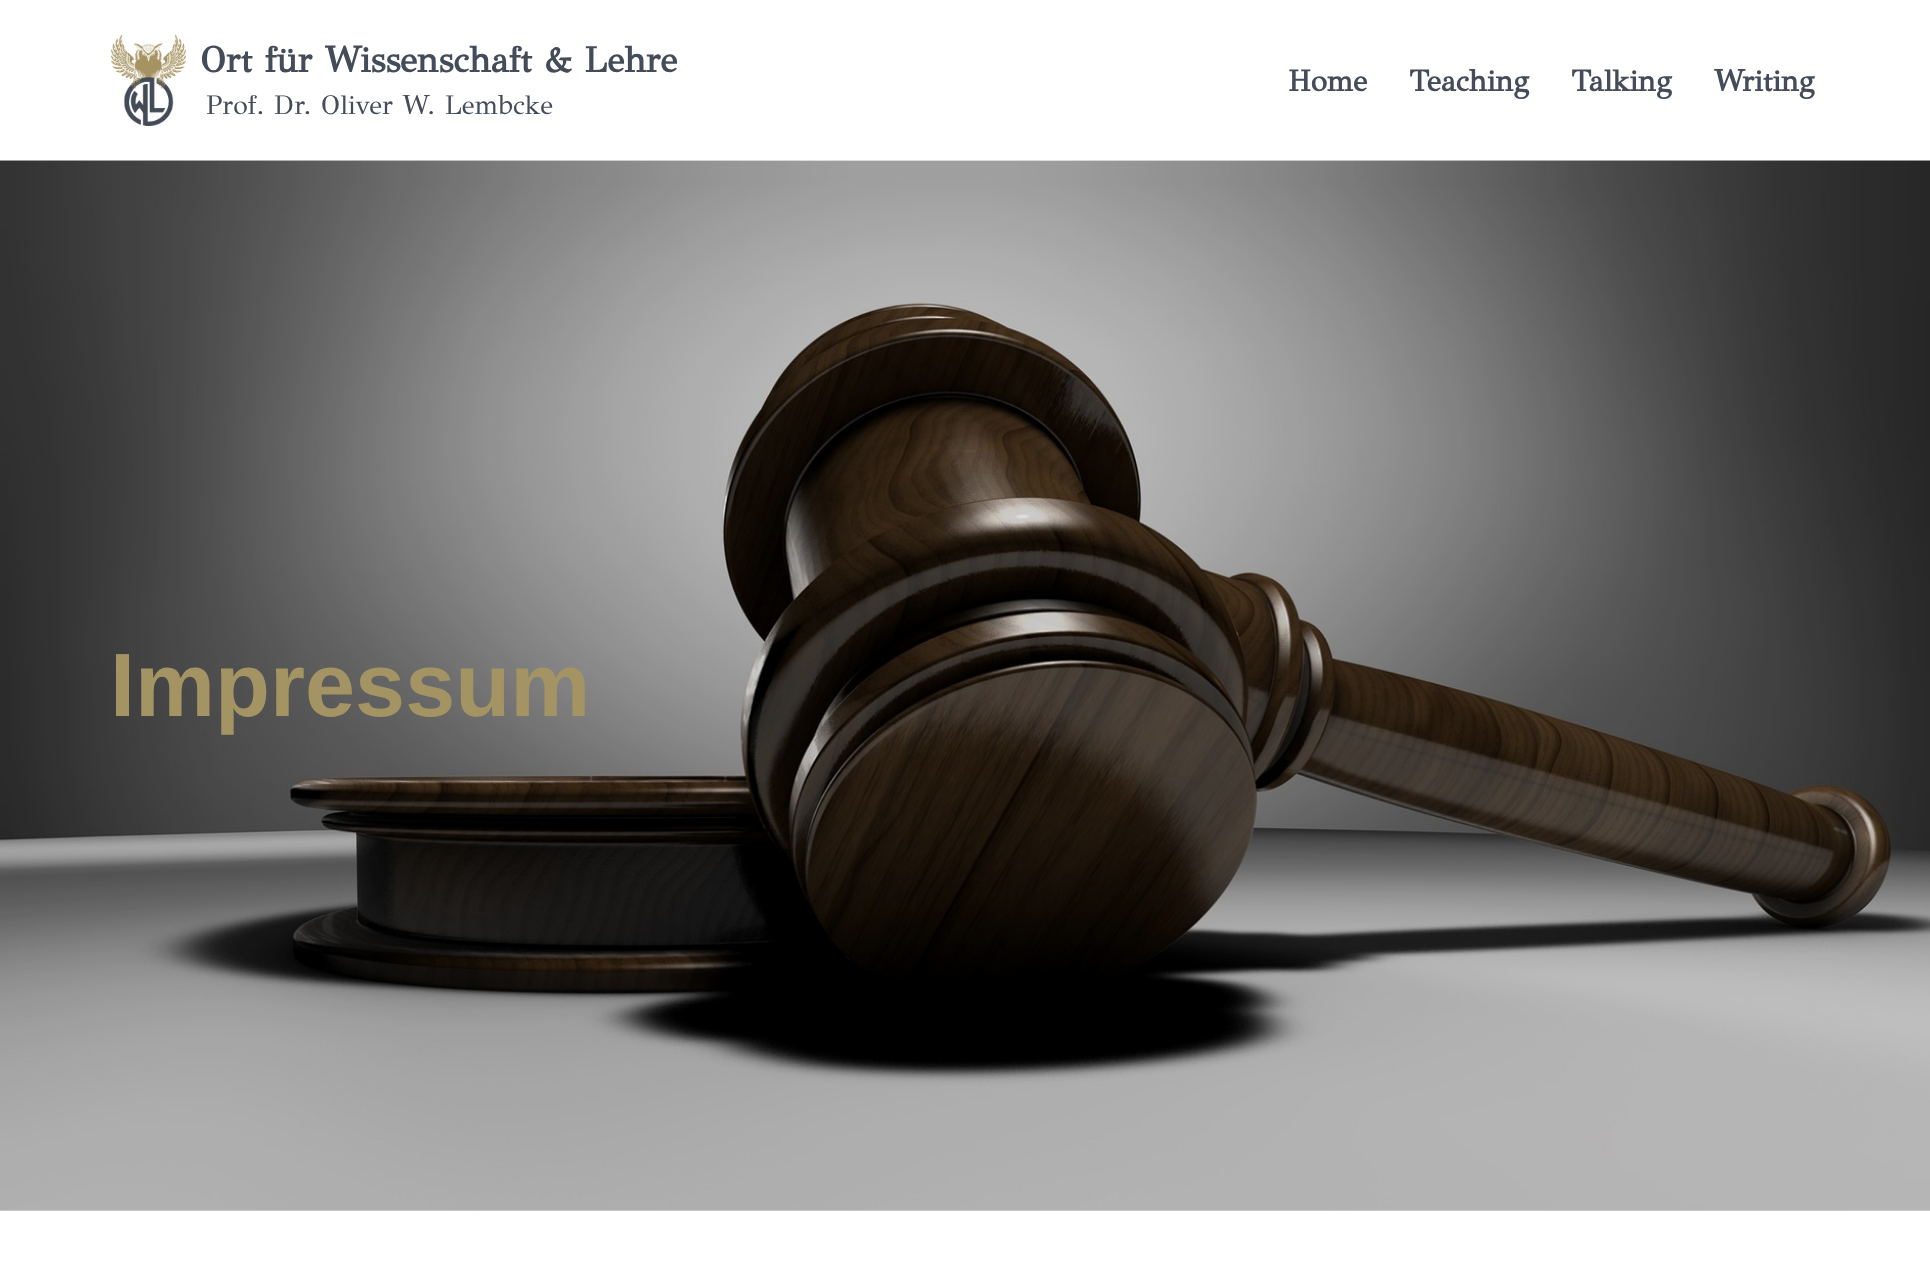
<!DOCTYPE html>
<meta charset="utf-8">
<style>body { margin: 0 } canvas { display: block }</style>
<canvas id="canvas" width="1930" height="1262"></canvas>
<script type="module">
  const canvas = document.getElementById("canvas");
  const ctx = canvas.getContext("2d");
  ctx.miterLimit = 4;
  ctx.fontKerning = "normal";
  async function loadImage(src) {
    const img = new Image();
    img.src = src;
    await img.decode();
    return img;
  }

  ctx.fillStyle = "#ffffff";
  ctx.fillRect(0, 0, 1930, 1262);
  ctx.drawImage(await loadImage("img1.png"), 111, 34, 75, 92);
  ctx.font = "bold 36px GFS Didot";
  ctx.fillStyle = "#444c59";
  ctx.fillText("Ort für Wissenschaft & Lehre", 200, 72);
  ctx.font = "27px GFS Didot";
  ctx.fillText("Prof. Dr. Oliver W. Lembcke", 206, 114);
  ctx.font = "bold 30px GFS Didot";
  ctx.fillText("Home", 1288, 91);
  ctx.fillText("Teaching", 1409, 91);
  ctx.fillText("Talking", 1571, 91);
  ctx.fillText("Writing", 1714, 91);
  ctx.drawImage(await loadImage("img2.png"), 0, 160, 1930, 1051);
  ctx.fillStyle = "rgba(0, 0, 0, 0.12)";
  ctx.fillRect(0, 161, 1930, 1050);
  ctx.font = "bold 90px Liberation Sans";
  ctx.fillStyle = "#a49464";
  ctx.fillText("Impressum", 110, 716);
</script>
